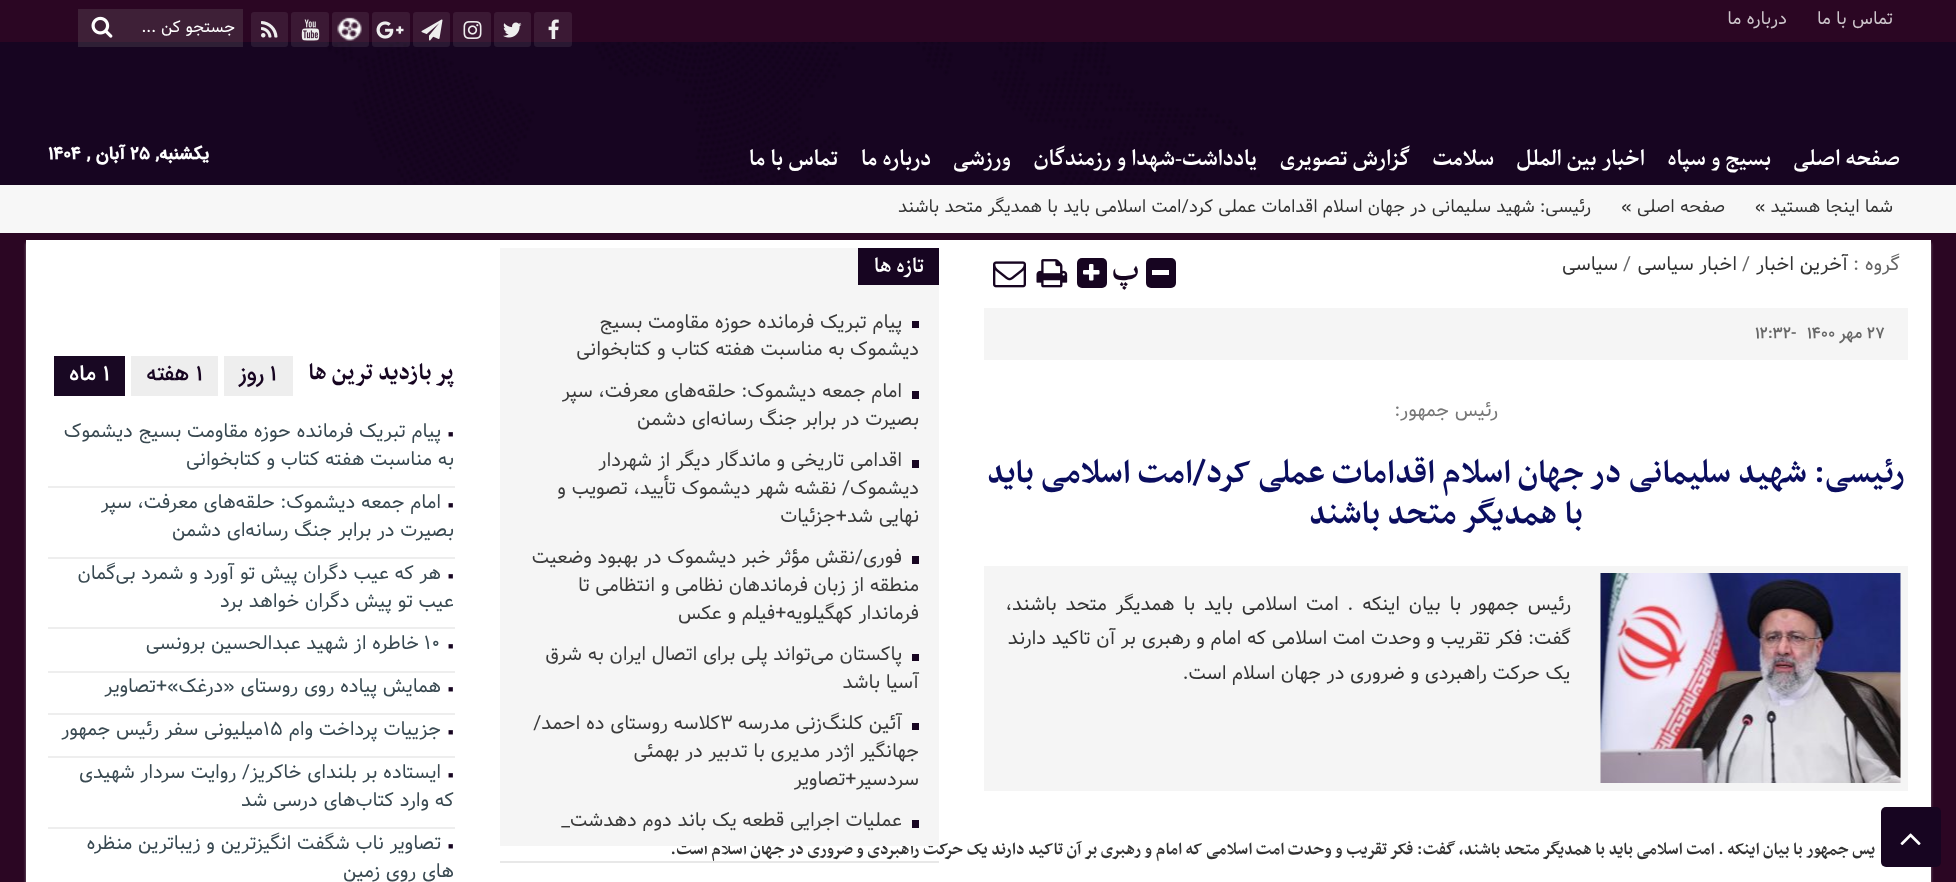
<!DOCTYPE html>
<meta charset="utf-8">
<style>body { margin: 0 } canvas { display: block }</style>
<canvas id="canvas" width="1956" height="882"></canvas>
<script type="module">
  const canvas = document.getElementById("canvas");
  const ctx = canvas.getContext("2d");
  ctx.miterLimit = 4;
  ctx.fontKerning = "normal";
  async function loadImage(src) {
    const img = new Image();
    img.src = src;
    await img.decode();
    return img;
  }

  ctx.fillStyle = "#2b0623";
  ctx.fillRect(0, 0, 1956, 882);
  ctx.fillStyle = "#3e2037";
  ctx.fillRect(78, 9, 165, 33);
  ctx.direction = "rtl";
  ctx.font = "18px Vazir";
  ctx.fillStyle = "#cdc5cb";
  ctx.fillText("تماس با ما", 1893, 24);
  ctx.fillText("درباره ما", 1787, 24);
  ctx.fillStyle = "#170521";
  ctx.fillRect(0, 42, 1956, 143);
  ctx.drawImage(await loadImage("img10.png"), 327, 42, 933, 142);
  ctx.fillStyle = "rgba(255, 255, 255, 0.08)";
  ctx.beginPath();
  ctx.roundRect(534, 12, 38, 35, 3);
  ctx.fill();
  ctx.drawImage(await loadImage("img1.png"), 548, 19, 11, 20);
  ctx.beginPath();
  ctx.roundRect(494, 12, 37, 35, 3);
  ctx.fill();
  ctx.drawImage(await loadImage("img2.png"), 503, 22, 19, 16);
  ctx.beginPath();
  ctx.roundRect(453, 12, 38, 35, 3);
  ctx.fill();
  ctx.drawImage(await loadImage("img3.png"), 463, 21, 19, 18);
  ctx.beginPath();
  ctx.roundRect(413, 12, 37, 35, 3);
  ctx.fill();
  ctx.drawImage(await loadImage("img4.png"), 421, 19, 22, 22);
  ctx.beginPath();
  ctx.roundRect(372, 12, 38, 35, 3);
  ctx.fill();
  ctx.drawImage(await loadImage("img5.png"), 376, 21, 28, 18);
  ctx.beginPath();
  ctx.roundRect(332, 12, 37, 35, 3);
  ctx.fill();
  ctx.drawImage(await loadImage("img6.png"), 337, 17, 25, 24);
  ctx.beginPath();
  ctx.roundRect(291, 12, 38, 35, 3);
  ctx.fill();
  ctx.drawImage(await loadImage("img7.png"), 301, 19, 19, 22);
  ctx.beginPath();
  ctx.roundRect(251, 12, 37, 35, 3);
  ctx.fill();
  ctx.drawImage(await loadImage("img8.png"), 261, 21, 17, 17);
  ctx.font = "16.5px Vazir";
  ctx.fillStyle = "#ffffff";
  ctx.fillText("جستجو کن ...", 235, 32);
  ctx.drawImage(await loadImage("img9.png"), 91, 16, 22, 22);
  ctx.fillStyle = "#2e1f35";
  ctx.fillRect(78, 42, 165, 5);
  ctx.font = "bold 21px Parastoo";
  ctx.fillStyle = "#ffffff";
  ctx.fillText("صفحه اصلی", 1900, 165);
  ctx.fillText("بسیج و سپاه", 1771, 165);
  ctx.fillText("اخبار بین الملل", 1645, 165);
  ctx.fillText("سلامت", 1494, 165);
  ctx.fillText("گزارش تصویری", 1410, 165);
  ctx.fillText("یادداشت", 1257, 165);
  ctx.font = "21px Liberation Serif";
  ctx.fillText("-", 1182, 165);
  ctx.font = "bold 21px Parastoo";
  ctx.fillText("شهدا و رزمندگان", 1175, 165);
  ctx.fillText("ورزشی", 1011, 165);
  ctx.fillText("درباره ما", 931, 165);
  ctx.fillText("تماس با ما", 838, 165);
  ctx.font = "bold 18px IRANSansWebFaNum";
  ctx.fillText("یکشنبه,", 209, 159);
  ctx.direction = "ltr";
  ctx.fillText("۲۵", 130, 159);
  ctx.direction = "rtl";
  ctx.fillText("آبان ,", 125, 159);
  ctx.direction = "ltr";
  ctx.fillText("۱۴۰۴", 48, 159);
  ctx.fillStyle = "#f7f7f7";
  ctx.fillRect(0, 185, 1956, 48);
  ctx.direction = "rtl";
  ctx.font = "18px Vazir";
  ctx.fillStyle = "#333333";
  ctx.fillText("شما اینجا هستید »", 1893, 212);
  ctx.fillText("صفحه اصلی »", 1725, 212);
  ctx.fillText("رئیسی: شهید سلیمانی در جهان اسلام اقدامات عملی کرد/امت اسلامی باید با همدیگر متحد باشند", 1591, 212);
  ctx.fillStyle = "rgba(207, 207, 207, 0.54)";
  ctx.filter = "blur(1.5px)";
  ctx.beginPath();
  ctx.rect(26, 243, 1905, 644);
  ctx.fill();
  ctx.filter = "none";
  ctx.fillStyle = "#ffffff";
  ctx.fillRect(26, 240, 1905, 642);
  ctx.fillStyle = "#170521";
  ctx.beginPath();
  ctx.roundRect(1881, 807, 60, 60, 5);
  ctx.fill();
  ctx.drawImage(await loadImage("img11.png"), 1900, 833, 21, 12);
  ctx.font = "19.5px Vazir";
  ctx.fillStyle = "#666666";
  ctx.fillText("گروه :", 1900, 270);
  ctx.fillStyle = "#333333";
  ctx.fillText("آخرین اخبار", 1848, 270);
  ctx.direction = "ltr";
  ctx.fillStyle = "#666666";
  ctx.fillText("/", 1742, 270);
  ctx.direction = "rtl";
  ctx.fillStyle = "#333333";
  ctx.fillText("اخبار سیاسی", 1737, 270);
  ctx.direction = "ltr";
  ctx.fillStyle = "#666666";
  ctx.fillText("/", 1623, 270);
  ctx.direction = "rtl";
  ctx.fillStyle = "#333333";
  ctx.fillText("سیاسی", 1618, 270);
  ctx.fillStyle = "#170521";
  ctx.beginPath();
  ctx.roundRect(1146, 258, 30, 30, 5);
  ctx.fill();
  ctx.fillStyle = "#ffffff";
  ctx.fillRect(1152, 270, 17, 5);
  ctx.font = "bold 33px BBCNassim";
  ctx.fillStyle = "#170521";
  ctx.fillText("پ", 1139, 279);
  ctx.beginPath();
  ctx.roundRect(1077, 258, 30, 30, 5);
  ctx.fill();
  ctx.drawImage(await loadImage("img12.png"), 1083, 264, 17, 17);
  ctx.drawImage(await loadImage("img13.png"), 1036, 259, 32, 29);
  ctx.drawImage(await loadImage("img14.png"), 993, 261, 33, 27);
  ctx.fillStyle = "#f5f5f5";
  ctx.fillRect(984, 308, 924, 52);
  ctx.direction = "ltr";
  ctx.font = "500 16.5px IRANSansWebFaNum";
  ctx.fillStyle = "#666666";
  ctx.fillText("27", 1867, 338);
  ctx.direction = "rtl";
  ctx.fillText("مهر", 1862, 338);
  ctx.direction = "ltr";
  ctx.fillText("1400", 1807, 338);
  ctx.fillText("12:32-", 1755, 338);
  ctx.direction = "rtl";
  ctx.font = "19.5px Vazir";
  ctx.fillStyle = "#777777";
  ctx.fillText("رئیس جمهور:", 1498, 416);
  ctx.font = "bold 37.8px BBCNassim";
  ctx.fillStyle = "#0b0e5f";
  ctx.fillText("رئیسی: شهید سلیمانی در جهان اسلام اقدامات عملی کرد/امت اسلامی باید", 1905, 482);
  ctx.fillText("با همدیگر متحد باشند", 1583, 523);
  ctx.fillStyle = "#f5f5f5";
  ctx.fillRect(984, 566, 924, 225);
  ctx.drawImage(await loadImage("img15.png"), 1600, 573, 301, 210);
  ctx.wordSpacing = "3.25px";
  ctx.font = "19.5px Vazir";
  ctx.fillStyle = "#333333";
  ctx.fillText("رئیس جمهور با بیان اینکه . امت اسلامی باید با همدیگر متحد باشند،", 1571, 610);
  ctx.wordSpacing = "0px";
  ctx.fillText("گفت: فکر تقریب و وحدت امت اسلامی که امام و رهبری بر آن تاکید دارند", 1571, 644);
  ctx.fillText("یک حرکت راهبردی و ضروری در جهان اسلام است.", 1570, 679);
  ctx.font = "bold 19.5px BBCNassim";
  ctx.fillText("یس جمهور با بیان اینکه . امت اسلامی باید با همدیگر متحد باشند، گفت: فکر تقریب و وحدت امت اسلامی که امام و رهبری بر آن تاکید دارند یک حرکت راهبردی و ضروری در جهان اسلام است.", 1875, 854);
  ctx.fillStyle = "#f5f5f5";
  ctx.fillRect(500, 248, 439, 598);
  ctx.fillStyle = "#170521";
  ctx.fillRect(858, 248, 81, 37);
  ctx.font = "bold 19.5px Parastoo";
  ctx.fillStyle = "#ffffff";
  ctx.fillText("تازه ها", 924, 272);
  ctx.fillStyle = "#170521";
  ctx.fillRect(912, 321, 7, 7);
  ctx.font = "19.5px Vazir";
  ctx.fillStyle = "#3b3b3b";
  ctx.fillText("پیام تبریک فرمانده حوزه مقاومت بسیج", 902, 328);
  ctx.fillText("دیشموک به مناسبت هفته کتاب و کتابخوانی", 919, 355);
  ctx.fillStyle = "#170521";
  ctx.fillRect(912, 391, 7, 8);
  ctx.fillStyle = "#3b3b3b";
  ctx.fillText("امام جمعه دیشموک: حلقه‌های معرفت، سپر", 902, 397);
  ctx.fillText("بصیرت در برابر جنگ رسانه‌ای دشمن", 919, 425);
  ctx.fillStyle = "#170521";
  ctx.fillRect(912, 460, 7, 8);
  ctx.fillStyle = "#3b3b3b";
  ctx.fillText("اقدامی تاریخی و ماندگار دیگر از شهردار", 902, 466);
  ctx.fillText("دیشموک/ نقشه شهر دیشموک تأیید، تصویب و", 919, 494);
  ctx.fillText("نهایی شد+جزئیات", 919, 522);
  ctx.fillStyle = "#170521";
  ctx.fillRect(912, 556, 7, 8);
  ctx.fillStyle = "#3b3b3b";
  ctx.fillText("فوری/نقش مؤثر خبر دیشموک در بهبود وضعیت", 902, 563);
  ctx.fillText("منطقه از زبان فرماندهان نظامی و انتظامی تا", 919, 591);
  ctx.fillText("فرماندار کهگیلویه+فیلم و عکس", 919, 619);
  ctx.fillStyle = "#170521";
  ctx.fillRect(912, 654, 7, 7);
  ctx.fillStyle = "#3b3b3b";
  ctx.fillText("پاکستان می‌تواند پلی برای اتصال ایران به شرق", 902, 660);
  ctx.fillText("آسیا باشد", 919, 688);
  ctx.fillStyle = "#170521";
  ctx.fillRect(912, 723, 7, 7);
  ctx.fillStyle = "#3b3b3b";
  ctx.fillText("آئین کلنگ‌زنی مدرسه", 902, 729);
  ctx.direction = "ltr";
  ctx.fillText("۳", 720, 729);
  ctx.direction = "rtl";
  ctx.fillText("کلاسه روستای ده احمد/", 720, 729);
  ctx.fillText("جهانگیر اژدر مدیری با تدبیر در بهمئی", 919, 757);
  ctx.fillText("سردسیر+تصاویر", 919, 785);
  ctx.fillStyle = "#170521";
  ctx.fillRect(912, 820, 7, 8);
  ctx.save();
  ctx.beginPath();
  ctx.rect(507, 306, 432, 525);
  ctx.clip();
  ctx.fillStyle = "#3b3b3b";
  ctx.fillText("عملیات اجرایی قطعه یک باند دوم دهدشت_", 902, 826);
  ctx.restore();
  ctx.fillStyle = "#e8e8e8";
  ctx.fillRect(500, 861, 439, 2);
  ctx.font = "bold 27px BBCNassim";
  ctx.fillStyle = "#170521";
  ctx.fillText("پر بازدید ترین ها", 454, 379);
  ctx.fillStyle = "#eeeeee";
  ctx.fillRect(224, 356, 69, 40);
  ctx.direction = "ltr";
  ctx.font = "500 22px IRANSansWebFaNum";
  ctx.fillStyle = "#170521";
  ctx.fillText("1", 270, 380);
  ctx.direction = "rtl";
  ctx.fillText("روز", 264, 380);
  ctx.fillStyle = "#eeeeee";
  ctx.fillRect(131, 356, 87, 40);
  ctx.direction = "ltr";
  ctx.fillStyle = "#170521";
  ctx.fillText("1", 196, 380);
  ctx.direction = "rtl";
  ctx.fillText("هفته", 189, 380);
  ctx.fillStyle = "#190823";
  ctx.fillRect(54, 356, 71, 40);
  ctx.direction = "ltr";
  ctx.fillStyle = "#ffffff";
  ctx.fillText("1", 103, 380);
  ctx.direction = "rtl";
  ctx.fillText("ماه", 96, 380);
  ctx.fillStyle = "#eeeeee";
  ctx.fillRect(48, 486, 407, 2);
  ctx.direction = "ltr";
  ctx.font = "9px Liberation Serif";
  ctx.fillStyle = "#170521";
  ctx.fillText("■", 448, 437);
  ctx.direction = "rtl";
  ctx.font = "19.5px Vazir";
  ctx.fillStyle = "#394951";
  ctx.fillText("پیام تبریک فرمانده حوزه مقاومت بسیج دیشموک", 441, 437);
  ctx.fillText("به مناسبت هفته کتاب و کتابخوانی", 454, 465);
  ctx.fillStyle = "#eeeeee";
  ctx.fillRect(48, 557, 407, 2);
  ctx.direction = "ltr";
  ctx.font = "9px Liberation Serif";
  ctx.fillStyle = "#170521";
  ctx.fillText("■", 448, 508);
  ctx.direction = "rtl";
  ctx.font = "19.5px Vazir";
  ctx.fillStyle = "#394951";
  ctx.fillText("امام جمعه دیشموک: حلقه‌های معرفت، سپر", 441, 508);
  ctx.fillText("بصیرت در برابر جنگ رسانه‌ای دشمن", 454, 536);
  ctx.fillStyle = "#eeeeee";
  ctx.fillRect(48, 627, 407, 2);
  ctx.direction = "ltr";
  ctx.font = "9px Liberation Serif";
  ctx.fillStyle = "#170521";
  ctx.fillText("■", 448, 579);
  ctx.direction = "rtl";
  ctx.font = "19.5px Vazir";
  ctx.fillStyle = "#394951";
  ctx.fillText("هر که عیب دگران پیش تو آورد و شمرد بی‌گمان", 441, 579);
  ctx.fillText("عیب تو پیش دگران خواهد برد", 454, 607);
  ctx.fillStyle = "#eeeeee";
  ctx.fillRect(48, 671, 407, 2);
  ctx.direction = "ltr";
  ctx.font = "9px Liberation Serif";
  ctx.fillStyle = "#170521";
  ctx.fillText("■", 448, 649);
  ctx.font = "19.5px Vazir";
  ctx.fillStyle = "#394951";
  ctx.fillText("۱۰", 424, 649);
  ctx.direction = "rtl";
  ctx.fillText("خاطره از شهید عبدالحسین برونسی", 419, 649);
  ctx.fillStyle = "#eeeeee";
  ctx.fillRect(48, 713, 407, 2);
  ctx.direction = "ltr";
  ctx.font = "9px Liberation Serif";
  ctx.fillStyle = "#170521";
  ctx.fillText("■", 448, 692);
  ctx.direction = "rtl";
  ctx.font = "19.5px Vazir";
  ctx.fillStyle = "#394951";
  ctx.fillText("همایش پیاده روی روستای «درغک»+تصاویر", 441, 692);
  ctx.fillStyle = "#eeeeee";
  ctx.fillRect(48, 756, 407, 2);
  ctx.direction = "ltr";
  ctx.font = "9px Liberation Serif";
  ctx.fillStyle = "#170521";
  ctx.fillText("■", 448, 735);
  ctx.direction = "rtl";
  ctx.font = "19.5px Vazir";
  ctx.fillStyle = "#394951";
  ctx.fillText("جزییات پرداخت وام", 441, 735);
  ctx.direction = "ltr";
  ctx.fillText("۱۵", 263, 735);
  ctx.direction = "rtl";
  ctx.fillText("میلیونی سفر رئیس جمهور", 263, 735);
  ctx.fillStyle = "#eeeeee";
  ctx.fillRect(48, 827, 407, 2);
  ctx.direction = "ltr";
  ctx.font = "9px Liberation Serif";
  ctx.fillStyle = "#170521";
  ctx.fillText("■", 448, 778);
  ctx.direction = "rtl";
  ctx.font = "19.5px Vazir";
  ctx.fillStyle = "#394951";
  ctx.fillText("ایستاده بر بلندای خاکریز/ روایت سردار شهیدی", 441, 778);
  ctx.fillText("که وارد کتاب‌های درسی شد", 454, 806);
  ctx.direction = "ltr";
  ctx.font = "9px Liberation Serif";
  ctx.fillStyle = "#170521";
  ctx.fillText("■", 448, 849);
  ctx.direction = "rtl";
  ctx.font = "19.5px Vazir";
  ctx.fillStyle = "#394951";
  ctx.fillText("تصاویر ناب شگفت انگیزترین و زیباترین منظره", 441, 849);
  ctx.fillText("های روی زمین", 454, 877);
</script>
